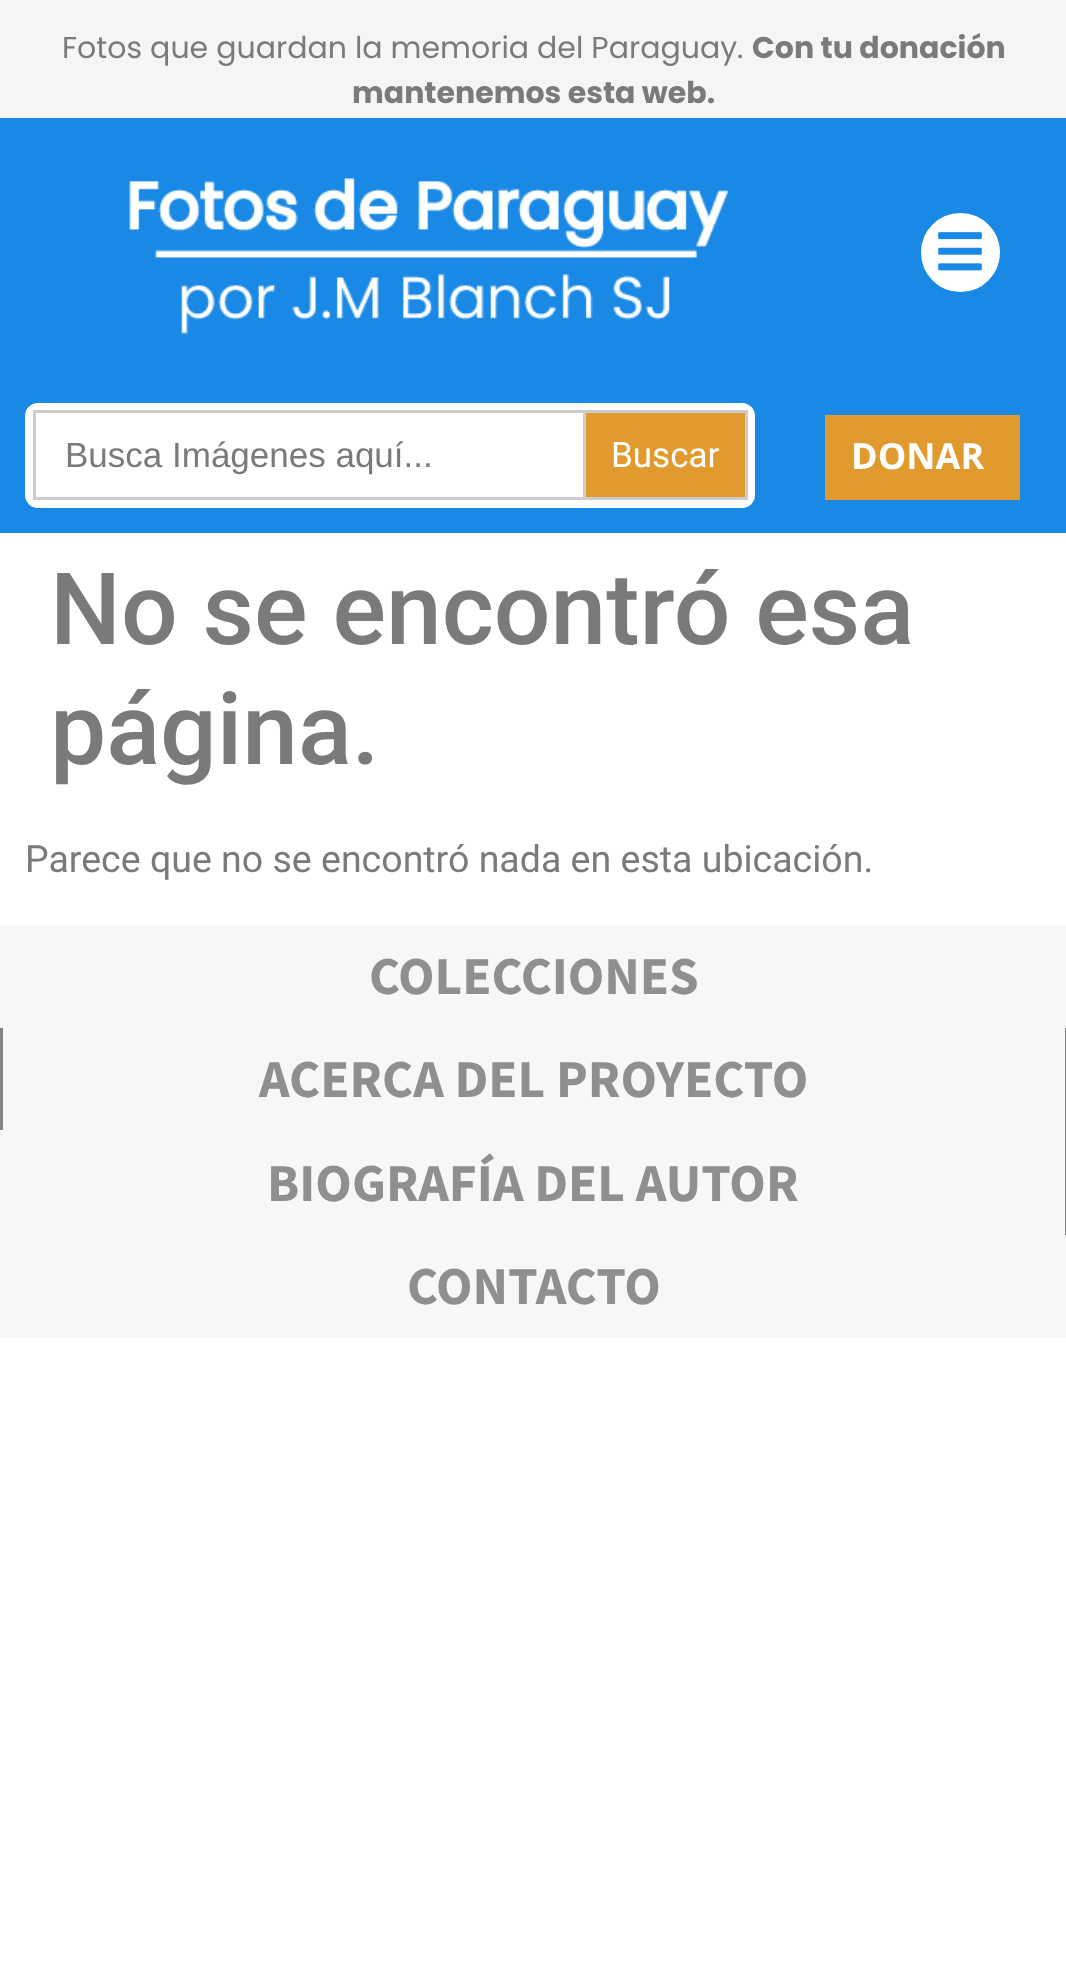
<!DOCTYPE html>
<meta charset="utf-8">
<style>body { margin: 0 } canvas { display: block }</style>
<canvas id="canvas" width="1066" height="1975"></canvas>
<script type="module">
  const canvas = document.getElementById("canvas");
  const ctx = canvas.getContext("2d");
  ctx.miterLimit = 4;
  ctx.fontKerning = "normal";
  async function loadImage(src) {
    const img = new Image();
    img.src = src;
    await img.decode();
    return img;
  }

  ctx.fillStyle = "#ffffff";
  ctx.fillRect(0, 0, 1066, 1975);
  ctx.fillStyle = "#f5f5f5";
  ctx.fillRect(0, 0, 1066, 118);
  ctx.font = "30px Poppins";
  ctx.fillStyle = "#7a7a7a";
  ctx.fillText("Fotos que guardan la memoria del Paraguay.", 62, 58);
  ctx.font = "bold 30px Poppins";
  ctx.fillText("Con tu donación", 752, 58);
  ctx.fillText("mantenemos esta web.", 352, 103);
  ctx.fillStyle = "#1989e5";
  ctx.fillRect(0, 118, 1066, 415);
  ctx.drawImage(await loadImage("img1.png"), 129, 178, 601, 156);
  ctx.fillStyle = "#ffffff";
  ctx.beginPath();
  ctx.arc(960.5, 252.5, 43.5, 0, Math.PI * 2);
  ctx.fill();
  ctx.strokeStyle = "#1989e5";
  ctx.lineWidth = 8;
  ctx.stroke();
  ctx.drawImage(await loadImage("img2.png"), 938, 232, 44, 39);
  ctx.beginPath();
  ctx.roundRect(29, 407, 722, 97, 9);
  ctx.strokeStyle = "#ffffff";
  ctx.stroke();
  ctx.fillRect(36, 413, 547, 84);
  ctx.strokeStyle = "#cccccc";
  ctx.lineWidth = 3;
  ctx.strokeRect(34.5, 411.5, 712, 87);
  ctx.font = "35px Liberation Sans";
  ctx.fillStyle = "#7a7a7a";
  ctx.fillText("Busca Imágenes aquí...", 65, 467);
  ctx.fillStyle = "#e09a2d";
  ctx.beginPath();
  ctx.rect(584.5, 411.5, 162, 87);
  ctx.fill();
  ctx.stroke();
  ctx.font = "35px Roboto";
  ctx.fillStyle = "#ffffff";
  ctx.fillText("Buscar", 611, 467);
  ctx.fillStyle = "#e09a2d";
  ctx.fillRect(825, 415, 195, 85);
  ctx.font = "bold 36px Open Sans";
  ctx.fillStyle = "#ffffff";
  ctx.fillText("DONAR", 851, 469);
  ctx.font = "500 100px Roboto";
  ctx.fillStyle = "#7a7a7a";
  ctx.fillText("No se encontró esa", 50, 644);
  ctx.fillText("página.", 50, 764);
  ctx.font = "37.5px Roboto";
  ctx.fillText("Parece que no se encontró nada en esta ubicación.", 25, 872);
  ctx.fillStyle = "#f7f7f7";
  ctx.fillRect(0, 925, 1066, 413);
  ctx.font = "bold 53.4px Source Sans Pro";
  ctx.fillStyle = "#8f8f8f";
  ctx.fillText("COLECCIONES", 369, 994);
  ctx.fillStyle = "#838383";
  ctx.fillRect(1065, 1028, 1, 207);
  ctx.fillRect(0, 1028, 3, 102);
  ctx.fillStyle = "#8f8f8f";
  ctx.fillText("ACERCA DEL PROYECTO", 259, 1097);
  ctx.fillText("BIOGRAFÍA DEL AUTOR", 267, 1201);
  ctx.fillText("CONTACTO", 407, 1304);
</script>
